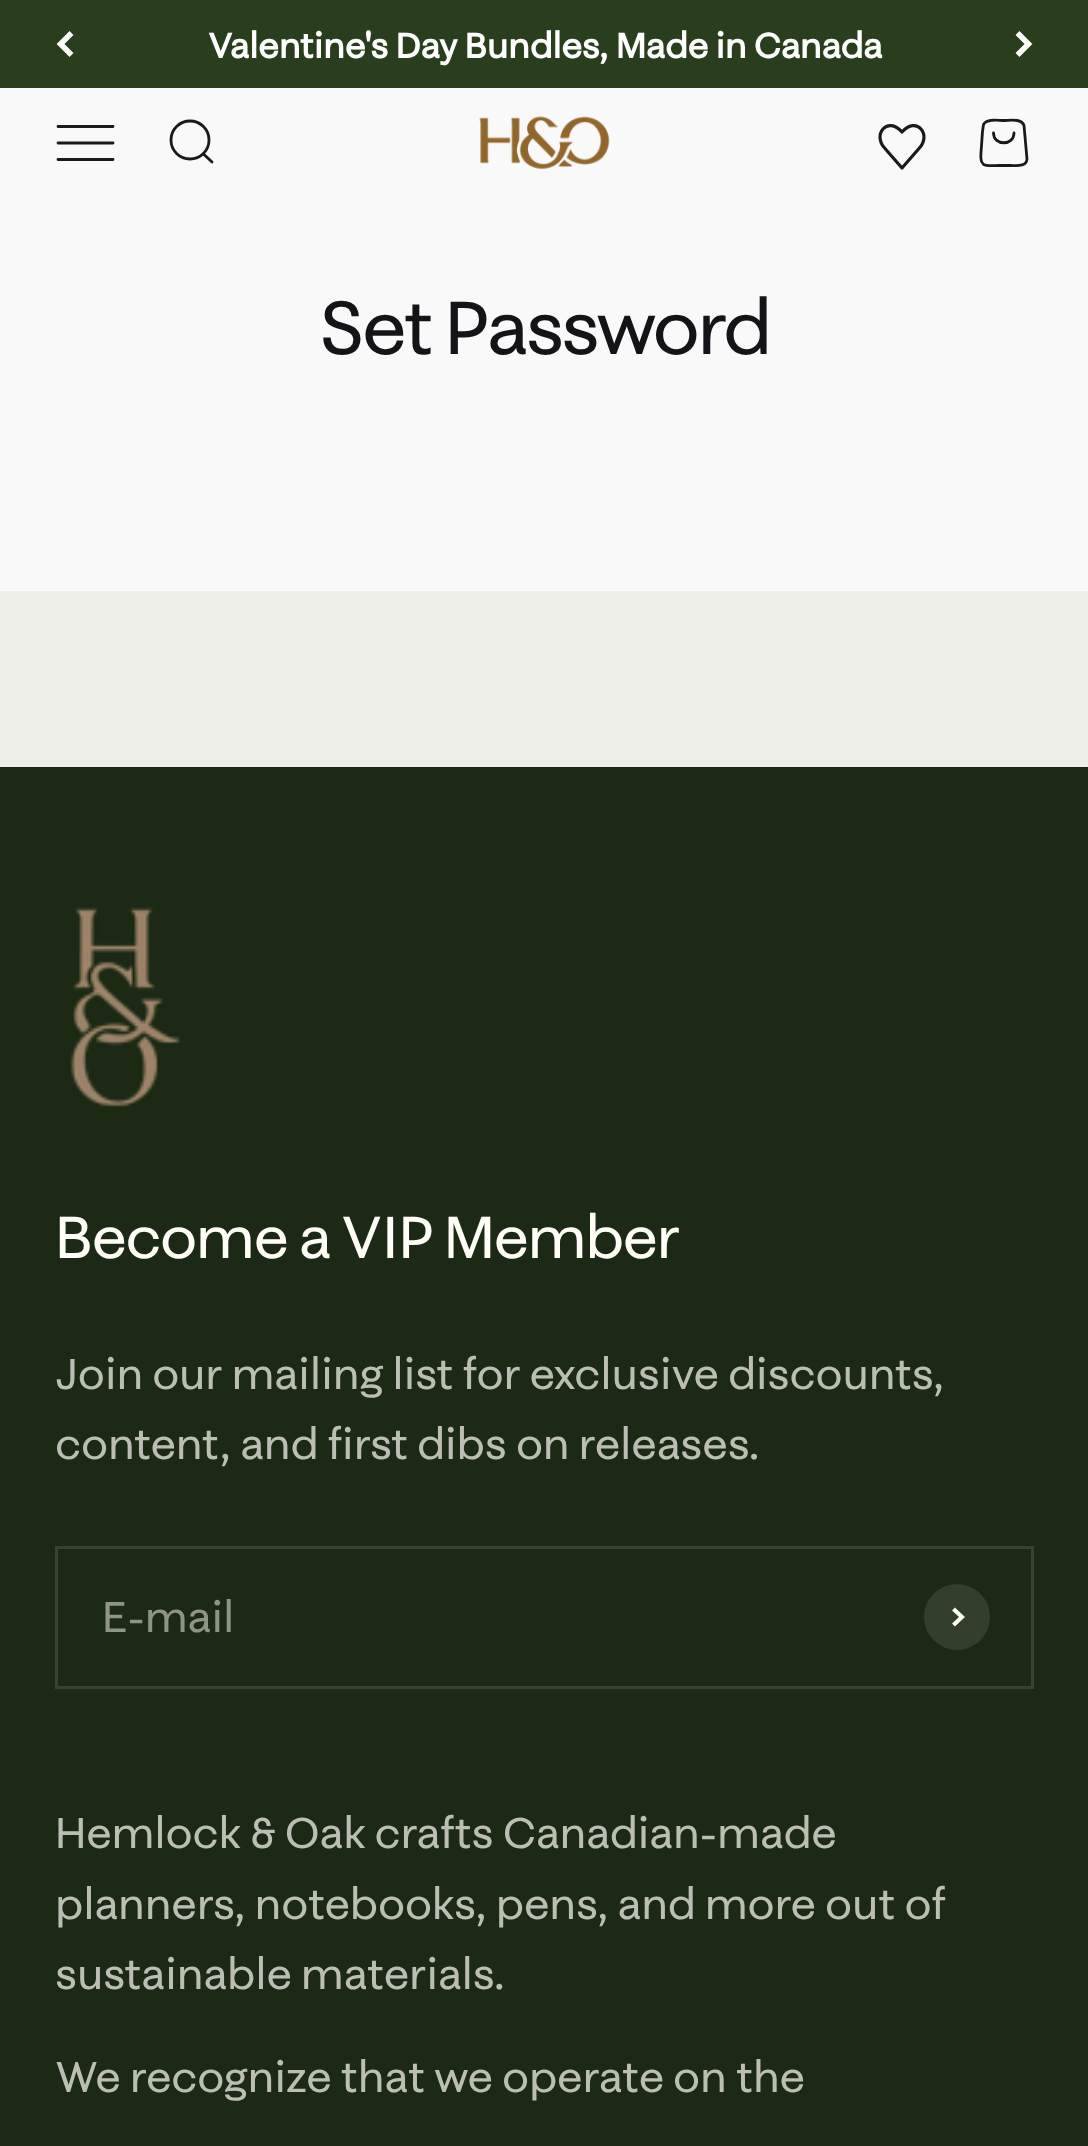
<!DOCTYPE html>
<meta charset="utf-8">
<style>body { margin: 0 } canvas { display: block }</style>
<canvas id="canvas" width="1088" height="2146"></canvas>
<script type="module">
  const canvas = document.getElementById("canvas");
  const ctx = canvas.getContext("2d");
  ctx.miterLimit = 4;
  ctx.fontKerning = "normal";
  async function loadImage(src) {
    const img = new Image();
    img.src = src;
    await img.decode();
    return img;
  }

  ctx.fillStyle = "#f9f9f9";
  ctx.fillRect(0, 0, 1088, 2146);
  ctx.fillStyle = "#293e1c";
  ctx.fillRect(0, 0, 1088, 88);
  ctx.beginPath();
  ctx.moveTo(71.5, 33);
  ctx.lineTo(60.5, 44);
  ctx.lineTo(71.5, 55);
  ctx.strokeStyle = "#ffffff";
  ctx.lineWidth = 5.5;
  ctx.stroke();
  ctx.letterSpacing = "-0.2px";
  ctx.font = "bold 35.75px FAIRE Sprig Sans";
  ctx.fillStyle = "#ffffff";
  ctx.fillText("Valentine's Day Bundles, Made in Canada", 208, 58);
  ctx.beginPath();
  ctx.moveTo(1017.5, 55);
  ctx.lineTo(1028.5, 44);
  ctx.lineTo(1017.5, 33);
  ctx.stroke();
  ctx.beginPath();
  ctx.moveTo(58, 126.5);
  ctx.lineTo(113, 126.5);
  ctx.moveTo(58, 143);
  ctx.lineTo(113, 143);
  ctx.moveTo(58, 159.5);
  ctx.lineTo(113, 159.5);
  ctx.strokeStyle = "#1a1a1a";
  ctx.lineWidth = 2.8;
  ctx.lineCap = "round";
  ctx.stroke();
  ctx.beginPath();
  ctx.arc(190, 140, 19, 0, Math.PI * 2);
  ctx.stroke();
  ctx.beginPath();
  ctx.moveTo(203.5, 154);
  ctx.lineTo(212, 162);
  ctx.lineJoin = "round";
  ctx.stroke();
  ctx.drawImage(await loadImage("img1.png"), 479, 116, 131, 54);
  ctx.beginPath();
  ctx.moveTo(902, 132);
  ctx.bezierCurveTo(887, 115.5, 872, 135, 885, 148.5);
  ctx.lineTo(902, 168);
  ctx.lineTo(919, 148.5);
  ctx.bezierCurveTo(932, 135, 917, 115.5, 902, 132);
  ctx.closePath();
  ctx.lineWidth = 3.2;
  ctx.stroke();
  ctx.beginPath();
  ctx.moveTo(1014, 133);
  ctx.bezierCurveTo(1014, 146, 993.5, 146, 993.5, 133);
  ctx.moveTo(982.5, 131.5);
  ctx.lineTo(981, 152.5);
  ctx.bezierCurveTo(979.5, 168.5, 986.5, 165.5, 1000, 165.5);
  ctx.lineTo(1011, 165.5);
  ctx.bezierCurveTo(1016.5, 165.5, 1026.5, 167, 1027, 159);
  ctx.lineTo(1024, 125.5);
  ctx.bezierCurveTo(1021.5, 118, 1009, 120.5, 1004, 120.5);
  ctx.bezierCurveTo(998.5, 120.5, 986.5, 118, 983.5, 124.5);
  ctx.closePath();
  ctx.lineWidth = 2.8;
  ctx.stroke();
  ctx.letterSpacing = "-2.75px";
  ctx.font = "77px FAIRE Sprig Sans";
  ctx.fillStyle = "#131318";
  ctx.fillText("Set Password", 319, 354);
  ctx.fillStyle = "#efefea";
  ctx.fillRect(0, 591, 1088, 176);
  ctx.fillStyle = "#1c2914";
  ctx.fillRect(0, 767, 1088, 1379);
  ctx.drawImage(await loadImage("img2.png"), 70, 907, 111, 200);
  ctx.letterSpacing = "-1.4px";
  ctx.font = "60.5px FAIRE Sprig Sans";
  ctx.fillStyle = "#fffff7";
  ctx.fillText("Become a VIP Member", 55, 1258);
  ctx.letterSpacing = "-0.2px";
  ctx.font = "44px FAIRE Sprig Sans";
  ctx.fillStyle = "#bbbfb3";
  ctx.fillText("Join our mailing list for exclusive discounts,", 55, 1389);
  ctx.fillText("content, and first dibs on releases.", 55, 1459);
  ctx.strokeStyle = "#37432f";
  ctx.lineWidth = 3;
  ctx.lineJoin = "miter";
  ctx.strokeRect(56.5, 1547.5, 976, 140);
  ctx.fillStyle = "#8e9486";
  ctx.fillText("E-mail", 102, 1632);
  ctx.fillStyle = "#333e2b";
  ctx.beginPath();
  ctx.arc(957, 1617, 33, 0, Math.PI * 2);
  ctx.fill();
  ctx.beginPath();
  ctx.moveTo(953.5, 1625);
  ctx.lineTo(962, 1617);
  ctx.lineTo(953.5, 1609);
  ctx.strokeStyle = "#fffff7";
  ctx.lineWidth = 4.1;
  ctx.lineCap = "butt";
  ctx.stroke();
  ctx.fillStyle = "#bbbfb3";
  ctx.fillText("Hemlock & Oak crafts Canadian-made", 55, 1848);
  ctx.fillText("planners, notebooks, pens, and more out of", 55, 1919);
  ctx.fillText("sustainable materials.", 55, 1989);
  ctx.fillText("We recognize that we operate on the", 55, 2092);
</script>
